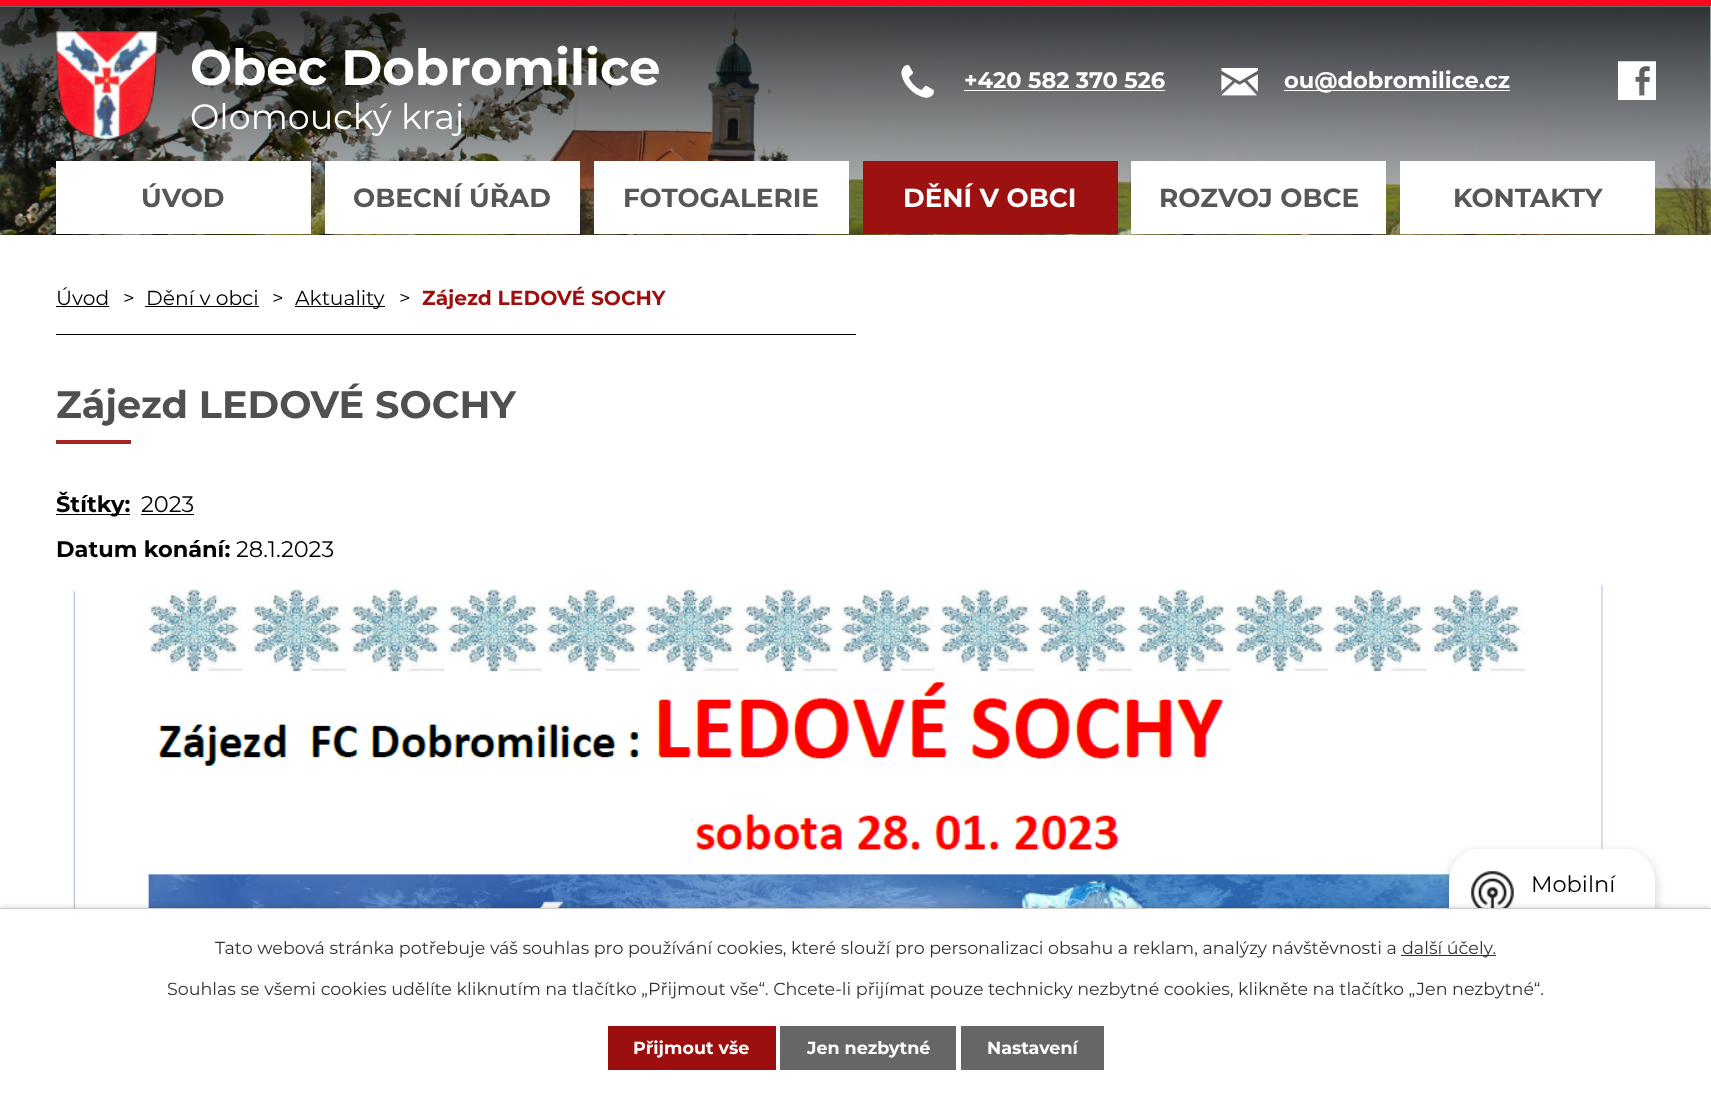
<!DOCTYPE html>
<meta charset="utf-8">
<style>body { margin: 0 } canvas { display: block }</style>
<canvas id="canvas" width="1711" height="1093"></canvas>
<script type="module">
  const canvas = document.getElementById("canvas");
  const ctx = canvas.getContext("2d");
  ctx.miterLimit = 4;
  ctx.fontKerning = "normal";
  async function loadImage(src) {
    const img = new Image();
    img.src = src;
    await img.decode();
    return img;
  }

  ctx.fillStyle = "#ffffff";
  ctx.fillRect(0, 0, 1711, 1093);
  ctx.drawImage(await loadImage("img1.png"), 0, 6, 1711, 229);
  ctx.fillStyle = "#fc0620";
  ctx.fillRect(0, 0, 1711, 6);
  ctx.drawImage(await loadImage("img2.png"), 56, 31, 102, 109);
  ctx.font = "bold 49.75px Montserrat";
  ctx.fillStyle = "#ffffff";
  ctx.fillText("Obec Dobromilice", 190, 85);
  ctx.font = "35px Montserrat";
  ctx.fillText("Olomoucký kraj", 190, 129);
  ctx.drawImage(await loadImage("img3.png"), 901, 65, 33, 33);
  ctx.font = "bold 22.5px Montserrat";
  ctx.fillText("+420 582 370 526", 964, 88);
  ctx.fillRect(964, 90, 201, 1);
  ctx.drawImage(await loadImage("img4.png"), 1221, 68, 37, 28);
  ctx.fillRect(1284, 90, 226, 1);
  ctx.fillText("ou@dobromilice.cz", 1284, 88);
  ctx.drawImage(await loadImage("img5.png"), 1618, 61, 38, 39);
  ctx.fillRect(56, 161, 255, 73);
  ctx.font = "bold 26.25px Montserrat";
  ctx.fillStyle = "#575757";
  ctx.fillText("ÚVOD", 141, 207);
  ctx.fillStyle = "#ffffff";
  ctx.fillRect(325, 161, 255, 73);
  ctx.fillStyle = "#575757";
  ctx.fillText("OBECNÍ ÚŘAD", 353, 207);
  ctx.fillStyle = "#ffffff";
  ctx.fillRect(594, 161, 255, 73);
  ctx.fillStyle = "#575757";
  ctx.fillText("FOTOGALERIE", 623, 207);
  ctx.fillStyle = "#9d1211";
  ctx.fillRect(863, 161, 255, 73);
  ctx.fillStyle = "#ffffff";
  ctx.fillText("DĚNÍ V OBCI", 903, 207);
  ctx.fillRect(1131, 161, 255, 73);
  ctx.fillStyle = "#575757";
  ctx.fillText("ROZVOJ OBCE", 1159, 207);
  ctx.fillStyle = "#ffffff";
  ctx.fillRect(1400, 161, 255, 73);
  ctx.fillStyle = "#575757";
  ctx.fillText("KONTAKTY", 1453, 207);
  ctx.font = "20.25px Montserrat";
  ctx.fillStyle = "#000000";
  ctx.fillText("Úvod", 56, 305);
  ctx.fillRect(56, 306, 53, 1);
  ctx.fillText(">", 123, 305);
  ctx.fillText("Dění v obci", 146, 305);
  ctx.fillRect(145, 306, 114, 1);
  ctx.fillText(">", 272, 305);
  ctx.fillRect(295, 306, 90, 1);
  ctx.fillText("Aktuality", 295, 305);
  ctx.fillText(">", 399, 305);
  ctx.font = "bold 20.25px Montserrat";
  ctx.fillStyle = "#9d0f0e";
  ctx.fillText("Zájezd LEDOVÉ SOCHY", 422, 305);
  ctx.fillStyle = "#000000";
  ctx.fillRect(56, 334, 800, 1);
  ctx.font = "bold 38.25px Montserrat";
  ctx.fillStyle = "#505050";
  ctx.fillText("Zájezd LEDOVÉ SOCHY", 56, 418);
  ctx.fillStyle = "#a52523";
  ctx.fillRect(56, 440, 75, 4);
  ctx.fillStyle = "#000000";
  ctx.fillRect(56, 514, 74, 1);
  ctx.font = "bold 22.5px Montserrat";
  ctx.fillText("Štítky:", 56, 512);
  ctx.font = "22.5px Montserrat";
  ctx.fillText("2023", 141, 512);
  ctx.fillRect(141, 514, 53, 1);
  ctx.font = "bold 22.5px Montserrat";
  ctx.fillText("Datum konání:", 56, 557);
  ctx.font = "22.5px Montserrat";
  ctx.fillText("28.1.2023", 236, 557);
  ctx.drawImage(await loadImage("img6.png"), 73, 584, 1530, 324);
  ctx.fillStyle = "rgba(0, 0, 0, 0.2)";
  ctx.filter = "blur(6px)";
  ctx.beginPath();
  ctx.roundRect(1449, 853, 206, 188, 31);
  ctx.fill();
  ctx.filter = "none";
  ctx.fillStyle = "#ffffff";
  ctx.beginPath();
  ctx.roundRect(1449, 849, 206, 189, 31);
  ctx.fill();
  ctx.drawImage(await loadImage("img7.png"), 1471, 871, 43, 37);
  ctx.fillStyle = "#000000";
  ctx.fillText("Mobilní", 1531, 892);
  ctx.fillStyle = "rgba(0, 0, 0, 0.2)";
  ctx.filter = "blur(3px)";
  ctx.beginPath();
  ctx.rect(0, 908, 1711, 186);
  ctx.fill();
  ctx.filter = "none";
  ctx.fillStyle = "#ffffff";
  ctx.fillRect(0, 909, 1711, 184);
  ctx.fillStyle = "#cccccc";
  ctx.fillRect(0, 908, 1711, 1);
  ctx.font = "17.5px Montserrat";
  ctx.fillStyle = "#333333";
  ctx.fillText("Tato webová stránka potřebuje váš souhlas pro používání cookies, které slouží pro personalizaci obsahu a reklam, analýzy návštěvnosti a", 215, 954);
  ctx.fillRect(1401, 955, 95, 1);
  ctx.fillText("další účely.", 1402, 954);
  ctx.fillText("Souhlas se všemi cookies udělíte kliknutím na tlačítko „Přijmout vše“. Chcete-li přijímat pouze technicky nezbytné cookies, klikněte na tlačítko „Jen nezbytné“.", 167, 995);
  ctx.fillStyle = "#9d0f0e";
  ctx.fillRect(608, 1026, 168, 44);
  ctx.font = "bold 17.5px Montserrat";
  ctx.fillStyle = "#ffffff";
  ctx.fillText("Přijmout vše", 633, 1054);
  ctx.fillStyle = "#666666";
  ctx.fillRect(780, 1026, 176, 44);
  ctx.fillStyle = "#ffffff";
  ctx.fillText("Jen nezbytné", 807, 1054);
  ctx.fillStyle = "#666666";
  ctx.fillRect(961, 1026, 143, 44);
  ctx.fillStyle = "#ffffff";
  ctx.fillText("Nastavení", 987, 1054);
</script>
